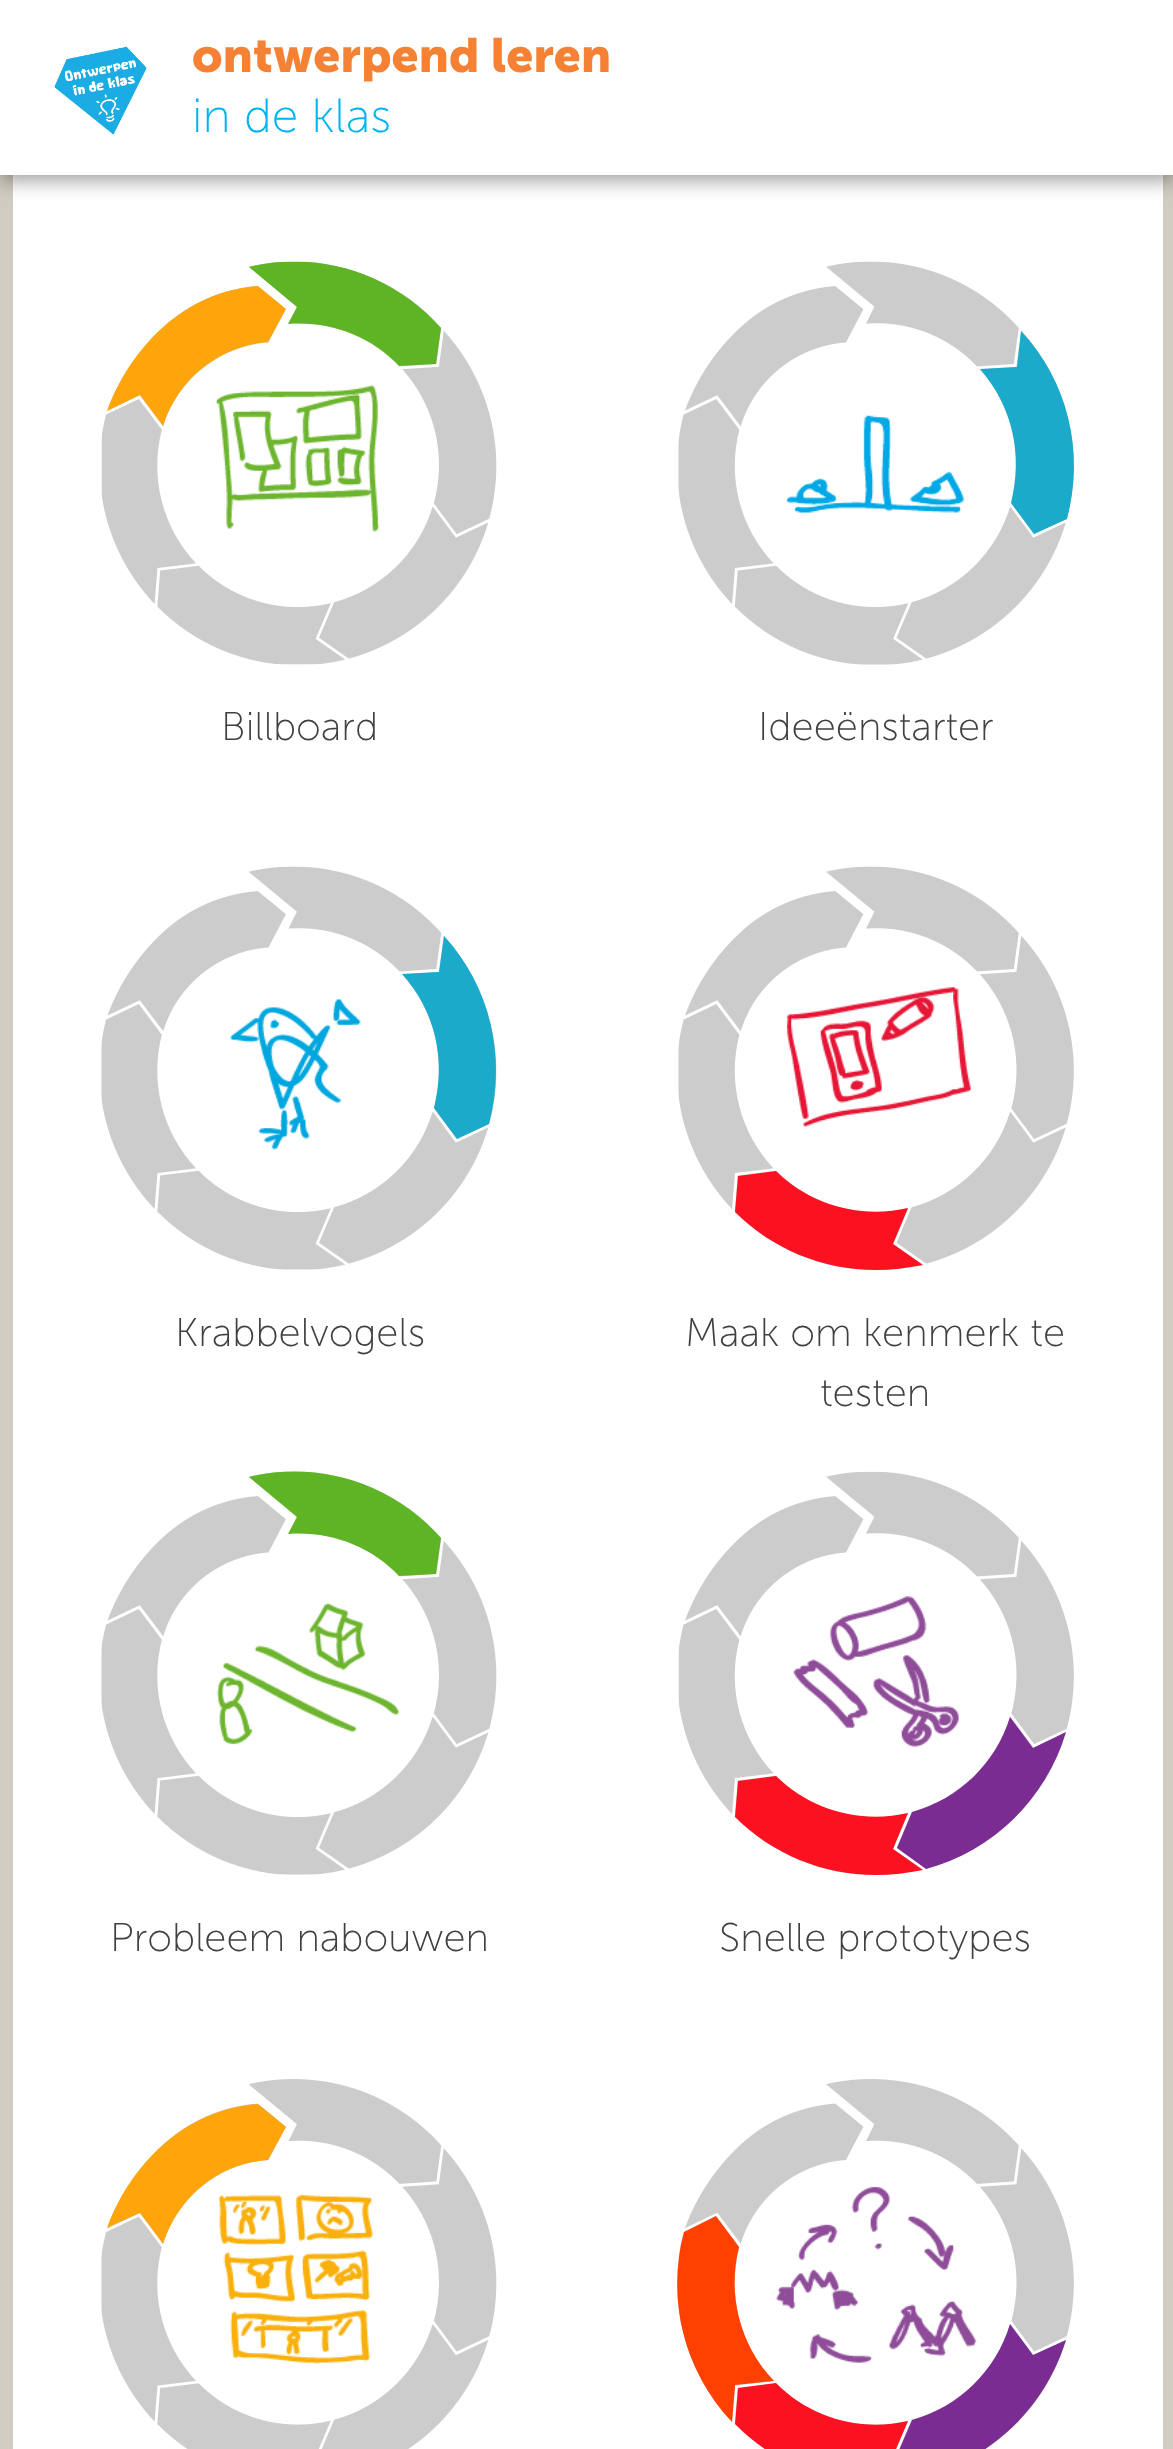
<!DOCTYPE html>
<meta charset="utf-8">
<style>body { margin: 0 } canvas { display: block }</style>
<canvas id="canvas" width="1173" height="2449"></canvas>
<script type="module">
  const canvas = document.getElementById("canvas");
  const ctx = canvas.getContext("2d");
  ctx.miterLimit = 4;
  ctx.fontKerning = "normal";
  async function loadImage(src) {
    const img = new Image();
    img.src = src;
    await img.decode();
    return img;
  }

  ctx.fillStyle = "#d1ccc1";
  ctx.fillRect(0, 0, 1173, 2449);
  ctx.fillStyle = "#ffffff";
  ctx.fillRect(13, 175, 1150, 2274);
  ctx.fillStyle = "rgba(0, 0, 0, 0.4)";
  ctx.filter = "blur(10px)";
  ctx.beginPath();
  ctx.rect(0, 5, 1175, 175);
  ctx.fill();
  ctx.filter = "none";
  ctx.fillStyle = "#ffffff";
  ctx.fillRect(0, 0, 1173, 175);
  ctx.drawImage(await loadImage("img1.png"), 54, 46, 93, 89);
  ctx.font = "48px 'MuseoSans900'";
  ctx.fillStyle = "#f58134";
  ctx.fillText("ontwerpend leren", 192, 72);
  ctx.font = "48px 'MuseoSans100'";
  ctx.fillStyle = "#00b4f1";
  ctx.fillText("in de klas", 192, 132);
  ctx.drawImage(await loadImage("img3.png"), 215, 384, 165, 148);
  ctx.drawImage(await loadImage("img2.png"), 101, 261, 396, 404);
  ctx.save();
  ctx.beginPath();
  ctx.rect(98, 258, 402, 410);
  ctx.clip();
  ctx.strokeStyle = "#ffffff";
  ctx.lineWidth = 3.5;
  ctx.strokeRect(99.75, 259.75, 399.5, 406.5);
  ctx.restore();
  ctx.fillStyle = "#5fb425";
  ctx.beginPath();
  ctx.moveTo(399, 366);
  ctx.lineTo(436, 364);
  ctx.lineTo(441, 328);
  ctx.bezierCurveTo(394, 275, 323, 251, 253, 266);
  ctx.lineTo(249, 267);
  ctx.lineTo(297, 307);
  ctx.lineTo(288, 324);
  ctx.bezierCurveTo(330, 321, 371, 336, 399, 366);
  ctx.fill();
  ctx.save();
  ctx.beginPath();
  ctx.rect(98, 258, 402, 410);
  ctx.clip();
  ctx.strokeStyle = "#ffffff";
  ctx.lineWidth = 3.5;
  ctx.strokeRect(99.75, 259.75, 399.5, 406.5);
  ctx.restore();
  ctx.fillStyle = "#ffa50c";
  ctx.beginPath();
  ctx.moveTo(107, 411);
  ctx.lineTo(140, 395);
  ctx.lineTo(163, 426);
  ctx.bezierCurveTo(178, 379, 219, 346, 268, 342);
  ctx.lineTo(286, 309);
  ctx.lineTo(258, 286);
  ctx.bezierCurveTo(186, 291, 131, 346, 107, 411);
  ctx.fill();
  ctx.font = "40px 'MuseoSans100'";
  ctx.fillStyle = "#404040";
  ctx.fillText("Billboard", 221, 740);
  ctx.drawImage(await loadImage("img5.png"), 786, 415, 179, 98);
  ctx.drawImage(await loadImage("img4.png"), 678, 261, 396, 404);
  ctx.strokeStyle = "#ffffff";
  ctx.lineWidth = 3.5;
  ctx.strokeRect(676.75, 259.75, 399.5, 406.5);
  ctx.fillStyle = "#1caaca";
  ctx.beginPath();
  ctx.moveTo(1011, 503);
  ctx.lineTo(1034, 534);
  ctx.lineTo(1067, 519);
  ctx.bezierCurveTo(1085, 452, 1068, 381, 1021, 331);
  ctx.lineTo(1017, 367);
  ctx.lineTo(980, 369);
  ctx.bezierCurveTo(1013, 407, 1023, 455, 1011, 503);
  ctx.fill();
  ctx.fillStyle = "#404040";
  ctx.fillText("Ideeënstarter", 758, 740);
  ctx.drawImage(await loadImage("img7.png"), 230, 999, 131, 151);
  ctx.drawImage(await loadImage("img6.png"), 101, 866, 396, 404);
  ctx.save();
  ctx.beginPath();
  ctx.rect(98, 863, 402, 412);
  ctx.clip();
  ctx.strokeRect(99.75, 864.75, 399.5, 406.5);
  ctx.restore();
  ctx.fillStyle = "#1caaca";
  ctx.beginPath();
  ctx.moveTo(434, 1108);
  ctx.lineTo(457, 1139);
  ctx.lineTo(489, 1124);
  ctx.bezierCurveTo(507, 1057, 490, 986, 444, 936);
  ctx.lineTo(439, 972);
  ctx.lineTo(402, 974);
  ctx.bezierCurveTo(436, 1012, 446, 1060, 434, 1108);
  ctx.fill();
  ctx.fillStyle = "#404040";
  ctx.fillText("Krabbelvogels", 175, 1346);
  ctx.drawImage(await loadImage("img9.png"), 786, 987, 185, 140);
  ctx.drawImage(await loadImage("img8.png"), 678, 866, 396, 404);
  ctx.strokeRect(676.75, 864.75, 399.5, 406.5);
  ctx.fillStyle = "#fc1121";
  ctx.beginPath();
  ctx.moveTo(876, 1270);
  ctx.bezierCurveTo(891, 1270, 907, 1268, 923, 1265);
  ctx.lineTo(893, 1244);
  ctx.lineTo(908, 1208);
  ctx.bezierCurveTo(861, 1219, 810, 1205, 776, 1171);
  ctx.lineTo(738, 1176);
  ctx.lineTo(735, 1212);
  ctx.bezierCurveTo(772, 1249, 823, 1270, 876, 1270);
  ctx.closePath();
  ctx.fill();
  ctx.fillStyle = "#404040";
  ctx.fillText("Maak om kenmerk te", 685, 1346);
  ctx.fillText("testen", 820, 1406);
  ctx.drawImage(await loadImage("img11.png"), 216, 1603, 184, 142);
  ctx.drawImage(await loadImage("img10.png"), 101, 1471, 396, 404);
  ctx.save();
  ctx.beginPath();
  ctx.rect(98, 1468, 402, 412);
  ctx.clip();
  ctx.strokeRect(99.75, 1469.75, 399.5, 406.5);
  ctx.restore();
  ctx.fillStyle = "#5fb425";
  ctx.beginPath();
  ctx.moveTo(399, 1576);
  ctx.lineTo(436, 1574);
  ctx.lineTo(441, 1538);
  ctx.bezierCurveTo(394, 1485, 323, 1461, 253, 1476);
  ctx.lineTo(249, 1477);
  ctx.lineTo(297, 1517);
  ctx.lineTo(288, 1534);
  ctx.bezierCurveTo(330, 1531, 371, 1546, 399, 1576);
  ctx.fill();
  ctx.fillStyle = "#404040";
  ctx.fillText("Probleem nabouwen", 110, 1951);
  ctx.drawImage(await loadImage("img13.png"), 793, 1596, 166, 151);
  ctx.drawImage(await loadImage("img12.png"), 678, 1471, 396, 404);
  ctx.strokeRect(676.75, 1469.75, 399.5, 406.5);
  ctx.fillStyle = "#7a2c92";
  ctx.beginPath();
  ctx.moveTo(1066, 1732);
  ctx.lineTo(1033, 1748);
  ctx.lineTo(1010, 1717);
  ctx.bezierCurveTo(996, 1763, 959, 1799, 912, 1812);
  ctx.lineTo(897, 1848);
  ctx.lineTo(926, 1869);
  ctx.bezierCurveTo(993, 1851, 1046, 1799, 1066, 1732);
  ctx.fill();
  ctx.strokeRect(676.75, 1469.75, 399.5, 406.5);
  ctx.fillStyle = "#fc1121";
  ctx.beginPath();
  ctx.moveTo(876, 1875);
  ctx.bezierCurveTo(891, 1875, 907, 1873, 923, 1870);
  ctx.lineTo(893, 1849);
  ctx.lineTo(908, 1813);
  ctx.bezierCurveTo(861, 1824, 810, 1810, 776, 1776);
  ctx.lineTo(738, 1781);
  ctx.lineTo(735, 1817);
  ctx.bezierCurveTo(772, 1854, 823, 1875, 876, 1875);
  ctx.closePath();
  ctx.fill();
  ctx.fillStyle = "#404040";
  ctx.fillText("Snelle prototypes", 719, 1951);
  ctx.drawImage(await loadImage("img15.png"), 218, 2195, 155, 169);
  ctx.drawImage(await loadImage("img14.png"), 101, 2079, 396, 370);
  ctx.save();
  ctx.beginPath();
  ctx.rect(98, 2075, 402, 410);
  ctx.clip();
  ctx.strokeRect(99.75, 2076.75, 399.5, 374.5);
  ctx.restore();
  ctx.fillStyle = "#ffa50c";
  ctx.beginPath();
  ctx.moveTo(107, 2228);
  ctx.lineTo(140, 2213);
  ctx.lineTo(163, 2244);
  ctx.bezierCurveTo(178, 2197, 219, 2163, 268, 2160);
  ctx.lineTo(286, 2127);
  ctx.lineTo(258, 2104);
  ctx.bezierCurveTo(186, 2109, 131, 2163, 107, 2228);
  ctx.fill();
  ctx.drawImage(await loadImage("img17.png"), 776, 2186, 201, 177);
  ctx.drawImage(await loadImage("img16.png"), 678, 2079, 396, 370);
  ctx.strokeRect(676.75, 2076.75, 399.5, 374.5);
  ctx.fillStyle = "#7a2c92";
  ctx.beginPath();
  ctx.moveTo(1066, 2340);
  ctx.lineTo(1033, 2355);
  ctx.lineTo(1010, 2324);
  ctx.bezierCurveTo(996, 2371, 959, 2407, 912, 2420);
  ctx.lineTo(897, 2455);
  ctx.lineTo(926, 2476);
  ctx.bezierCurveTo(993, 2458, 1046, 2406, 1066, 2340);
  ctx.fill();
  ctx.strokeRect(676.75, 2076.75, 399.5, 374.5);
  ctx.fillStyle = "#fc1121";
  ctx.beginPath();
  ctx.moveTo(876, 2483);
  ctx.bezierCurveTo(891, 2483, 907, 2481, 923, 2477);
  ctx.lineTo(893, 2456);
  ctx.lineTo(908, 2421);
  ctx.bezierCurveTo(861, 2432, 810, 2418, 776, 2383);
  ctx.lineTo(738, 2388);
  ctx.lineTo(735, 2424);
  ctx.bezierCurveTo(772, 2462, 823, 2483, 876, 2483);
  ctx.closePath();
  ctx.fill();
  ctx.strokeRect(676.75, 2076.75, 399.5, 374.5);
  ctx.fillStyle = "#ff4000";
  ctx.beginPath();
  ctx.moveTo(735, 2387);
  ctx.lineTo(735, 2385);
  ctx.lineTo(774, 2381);
  ctx.bezierCurveTo(740, 2345, 727, 2295, 739, 2247);
  ctx.lineTo(716, 2216);
  ctx.lineTo(684, 2232);
  ctx.bezierCurveTo(666, 2299, 684, 2371, 732, 2422);
  ctx.lineTo(735, 2387);
  ctx.fill();
</script>
